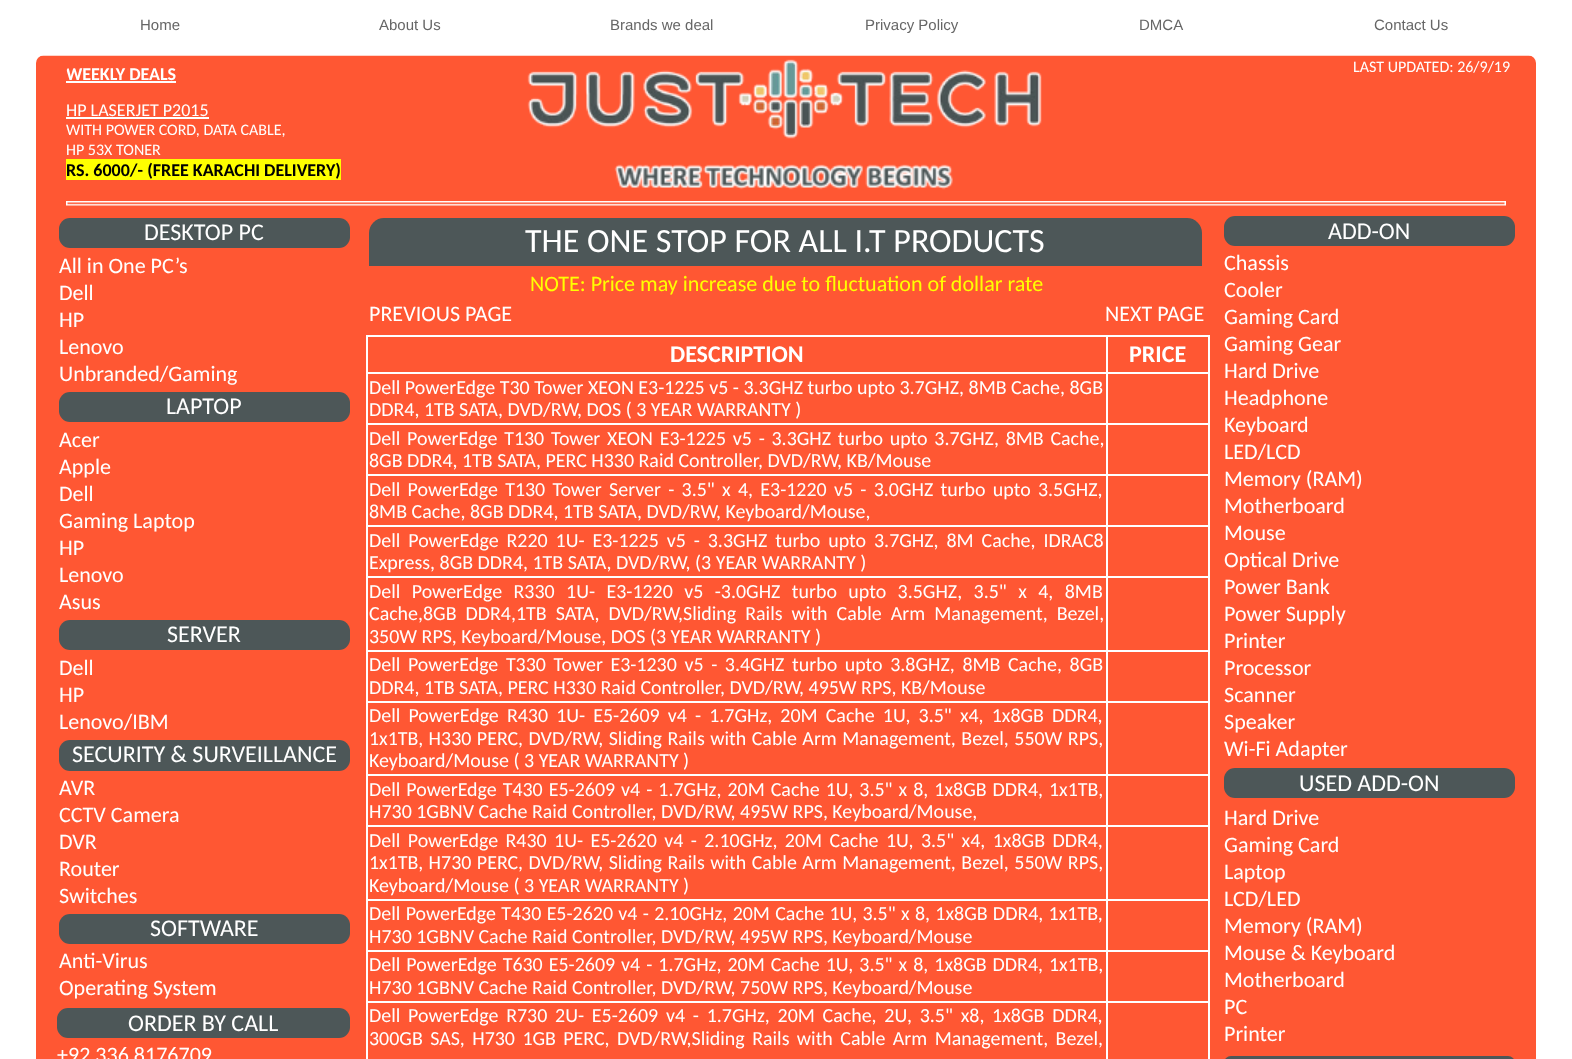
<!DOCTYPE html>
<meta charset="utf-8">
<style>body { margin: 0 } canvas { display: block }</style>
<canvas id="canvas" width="1572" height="1059"></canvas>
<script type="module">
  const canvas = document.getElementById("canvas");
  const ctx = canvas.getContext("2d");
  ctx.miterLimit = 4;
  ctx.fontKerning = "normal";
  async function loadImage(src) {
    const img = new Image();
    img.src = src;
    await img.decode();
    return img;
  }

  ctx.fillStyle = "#ffffff";
  ctx.fillRect(0, 0, 1572, 1059);
  ctx.font = "15px Liberation Sans";
  ctx.fillStyle = "#666666";
  ctx.fillText("Home", 140, 30);
  ctx.fillText("About Us", 379, 30);
  ctx.fillText("Brands we deal", 610, 30);
  ctx.fillText("Privacy Policy", 865, 30);
  ctx.fillText("DMCA", 1139, 30);
  ctx.fillText("Contact Us", 1374, 30);
  ctx.drawImage(await loadImage("img1.png"), 36, 55, 1500, 1004);
  ctx.drawImage(await loadImage("img2.png"), 527, 59, 515, 131);
  ctx.font = "16px Carlito";
  ctx.fillStyle = "#ffffff";
  ctx.fillText("LAST UPDATED: 26/9/19", 1353, 72);
  ctx.save();
  ctx.beginPath();
  ctx.roundRect(66, 63, 234, 27, 11);
  ctx.clip();
  ctx.font = "bold 18px Carlito";
  ctx.fillText("WEEKLY DEALS", 66, 80);
  ctx.restore();
  ctx.fillRect(66, 81, 110, 2);
  ctx.font = "18px Carlito";
  ctx.fillText("HP LASERJET P2015", 66, 116);
  ctx.fillRect(66, 117, 143, 2);
  ctx.font = "16px Carlito";
  ctx.fillText("WITH POWER CORD, DATA CABLE,", 66, 135);
  ctx.fillText("HP 53X TONER", 66, 155);
  ctx.fillStyle = "#ffff00";
  ctx.fillRect(66, 159, 275, 21);
  ctx.font = "bold 18px Carlito";
  ctx.fillStyle = "#000000";
  ctx.fillText("RS. 6000/- (FREE KARACHI DELIVERY)", 66, 176);
  ctx.drawImage(await loadImage("img3.png"), 66, 201, 1440, 5);
  ctx.fillStyle = "#4d5758";
  ctx.beginPath();
  ctx.roundRect(59, 218, 291, 30, 11);
  ctx.fill();
  ctx.font = "24px Carlito";
  ctx.fillStyle = "#ffffff";
  ctx.fillText("DESKTOP PC", 144, 240);
  ctx.fillStyle = "#4d5758";
  ctx.beginPath();
  ctx.roundRect(369, 218, 833, 48, [15, 15, 0, 0]);
  ctx.fill();
  ctx.font = "34px Carlito";
  ctx.fillStyle = "#ffffff";
  ctx.fillText("THE ONE STOP FOR ALL I.T PRODUCTS", 525, 252);
  ctx.fillStyle = "#4d5758";
  ctx.beginPath();
  ctx.roundRect(1224, 216, 291, 30, 11);
  ctx.fill();
  ctx.font = "24px Carlito";
  ctx.fillStyle = "#ffffff";
  ctx.fillText("ADD-ON", 1328, 239);
  ctx.font = "22.05px Carlito";
  ctx.fillText("All in One PC’s", 59, 273);
  ctx.fillText("Dell", 59, 300);
  ctx.fillText("HP", 59, 327);
  ctx.fillText("Lenovo", 59, 354);
  ctx.fillText("Unbranded/Gaming", 59, 381);
  ctx.fillStyle = "#ffff00";
  ctx.fillText("NOTE: Price may increase due to fluctuation of dollar rate", 530, 291);
  ctx.fillStyle = "#ffffff";
  ctx.fillText("Chassis", 1224, 270);
  ctx.fillText("Cooler", 1224, 297);
  ctx.fillText("Gaming Card", 1224, 324);
  ctx.fillText("Gaming Gear", 1224, 351);
  ctx.fillText("Hard Drive", 1224, 378);
  ctx.fillText("Headphone", 1224, 405);
  ctx.fillText("Keyboard", 1224, 432);
  ctx.fillText("LED/LCD", 1224, 459);
  ctx.fillText("Memory (RAM)", 1224, 486);
  ctx.fillText("Motherboard", 1224, 513);
  ctx.fillText("Mouse", 1224, 540);
  ctx.fillText("Optical Drive", 1224, 567);
  ctx.fillText("Power Bank", 1224, 594);
  ctx.fillText("Power Supply", 1224, 621);
  ctx.fillText("Printer", 1224, 648);
  ctx.fillText("Processor", 1224, 675);
  ctx.fillText("Scanner", 1224, 702);
  ctx.fillText("Speaker", 1224, 729);
  ctx.fillText("Wi-Fi Adapter", 1224, 756);
  ctx.fillText("PREVIOUS PAGE", 369, 321);
  ctx.fillText("NEXT PAGE", 1105, 321);
  ctx.fillStyle = "#4d5758";
  ctx.beginPath();
  ctx.roundRect(59, 392, 291, 30, 11);
  ctx.fill();
  ctx.font = "24px Carlito";
  ctx.fillStyle = "#ffffff";
  ctx.fillText("LAPTOP", 166, 414);
  ctx.fillRect(1106, 335, 103, 2);
  ctx.fillRect(1106, 372, 103, 2);
  ctx.fillRect(1106, 423, 103, 2);
  ctx.fillRect(1106, 474, 103, 2);
  ctx.fillRect(1106, 525, 103, 2);
  ctx.fillRect(1106, 576, 103, 2);
  ctx.fillRect(1106, 650, 103, 2);
  ctx.fillRect(1106, 701, 103, 2);
  ctx.fillRect(1106, 774, 103, 2);
  ctx.fillRect(1106, 825, 103, 2);
  ctx.fillRect(1106, 899, 103, 2);
  ctx.fillRect(1106, 950, 103, 2);
  ctx.fillRect(1106, 1001, 103, 2);
  ctx.fillRect(1106, 1001, 2, 58);
  ctx.fillRect(366, 1001, 741, 2);
  ctx.fillRect(1106, 950, 2, 52);
  ctx.fillRect(366, 950, 741, 2);
  ctx.fillRect(1106, 899, 2, 52);
  ctx.fillRect(366, 899, 741, 2);
  ctx.fillRect(1106, 825, 2, 75);
  ctx.fillRect(366, 825, 741, 2);
  ctx.fillRect(1106, 774, 2, 53);
  ctx.fillRect(366, 774, 741, 2);
  ctx.fillRect(1106, 701, 2, 75);
  ctx.fillRect(366, 701, 741, 2);
  ctx.fillRect(1106, 650, 2, 52);
  ctx.fillRect(366, 650, 741, 2);
  ctx.fillRect(1106, 576, 2, 75);
  ctx.fillRect(366, 576, 741, 2);
  ctx.fillRect(1106, 525, 2, 53);
  ctx.fillRect(366, 525, 741, 2);
  ctx.fillRect(1106, 474, 2, 53);
  ctx.fillRect(366, 474, 741, 2);
  ctx.fillRect(1106, 423, 2, 53);
  ctx.fillRect(366, 423, 741, 2);
  ctx.fillRect(1106, 372, 2, 53);
  ctx.fillRect(366, 372, 741, 2);
  ctx.fillRect(1106, 335, 2, 39);
  ctx.fillRect(366, 335, 741, 2);
  ctx.fillRect(366, 1001, 2, 58);
  ctx.fillRect(366, 950, 2, 52);
  ctx.fillRect(366, 899, 2, 52);
  ctx.fillRect(366, 825, 2, 75);
  ctx.fillRect(366, 774, 2, 53);
  ctx.fillRect(366, 701, 2, 75);
  ctx.fillRect(366, 650, 2, 52);
  ctx.fillRect(366, 576, 2, 75);
  ctx.fillRect(366, 525, 2, 53);
  ctx.fillRect(366, 474, 2, 53);
  ctx.fillRect(366, 423, 2, 53);
  ctx.fillRect(366, 372, 2, 53);
  ctx.fillRect(366, 335, 2, 39);
  ctx.font = "bold 24px Carlito";
  ctx.fillText("DESCRIPTION", 670, 362);
  ctx.fillRect(1208, 1001, 2, 58);
  ctx.fillRect(1208, 950, 2, 52);
  ctx.fillRect(1208, 899, 2, 52);
  ctx.fillRect(1208, 825, 2, 75);
  ctx.fillRect(1208, 774, 2, 53);
  ctx.fillRect(1208, 701, 2, 75);
  ctx.fillRect(1208, 650, 2, 52);
  ctx.fillRect(1208, 576, 2, 75);
  ctx.fillRect(1208, 525, 2, 53);
  ctx.fillRect(1208, 474, 2, 53);
  ctx.fillRect(1208, 423, 2, 53);
  ctx.fillRect(1208, 372, 2, 53);
  ctx.fillRect(1208, 335, 2, 39);
  ctx.fillText("PRICE", 1129, 362);
  ctx.font = "19.95px Carlito";
  ctx.fillText("Dell PowerEdge T30 Tower XEON E3-1225 v5 - 3.3GHZ turbo upto 3.7GHZ, 8MB Cache, 8GB", 369, 394);
  ctx.fillText("DDR4, 1TB SATA, DVD/RW, DOS ( 3 YEAR WARRANTY )", 369, 416);
  ctx.wordSpacing = "2.25px";
  ctx.fillText("Dell PowerEdge T130 Tower XEON E3-1225 v5 - 3.3GHZ turbo upto 3.7GHZ, 8MB Cache,", 369, 445);
  ctx.wordSpacing = "0px";
  ctx.fillText("8GB DDR4, 1TB SATA, PERC H330 Raid Controller, DVD/RW, KB/Mouse", 369, 467);
  ctx.wordSpacing = "2.75px";
  ctx.fillText("Dell PowerEdge T130 Tower Server - 3.5\" x 4, E3-1220 v5 - 3.0GHZ turbo upto 3.5GHZ,", 369, 496);
  ctx.wordSpacing = "0px";
  ctx.fillText("8MB Cache, 8GB DDR4, 1TB SATA, DVD/RW, Keyboard/Mouse,", 369, 518);
  ctx.wordSpacing = "3.4px";
  ctx.fillText("Dell PowerEdge R220 1U- E3-1225 v5 - 3.3GHZ turbo upto 3.7GHZ, 8M Cache, IDRAC8", 369, 547);
  ctx.wordSpacing = "0px";
  ctx.fillText("Express, 8GB DDR4, 1TB SATA, DVD/RW, (3 YEAR WARRANTY )", 369, 569);
  ctx.wordSpacing = "6.9px";
  ctx.fillText("Dell PowerEdge R330 1U- E3-1220 v5 -3.0GHZ turbo upto 3.5GHZ, 3.5\" x 4, 8MB", 369, 598);
  ctx.wordSpacing = "4.5px";
  ctx.fillText("Cache,8GB DDR4,1TB SATA, DVD/RW,Sliding Rails with Cable Arm Management, Bezel,", 369, 620);
  ctx.wordSpacing = "0px";
  ctx.fillText("350W RPS, Keyboard/Mouse, DOS (3 YEAR WARRANTY )", 369, 643);
  ctx.wordSpacing = "3.1px";
  ctx.fillText("Dell PowerEdge T330 Tower E3-1230 v5 - 3.4GHZ turbo upto 3.8GHZ, 8MB Cache, 8GB", 369, 671);
  ctx.wordSpacing = "0px";
  ctx.fillText("DDR4, 1TB SATA, PERC H330 Raid Controller, DVD/RW, 495W RPS, KB/Mouse", 369, 694);
  ctx.wordSpacing = "3.6px";
  ctx.fillText("Dell PowerEdge R430 1U- E5-2609 v4 - 1.7GHz, 20M Cache 1U, 3.5\" x4, 1x8GB DDR4,", 369, 722);
  ctx.wordSpacing = "1px";
  ctx.fillText("1x1TB, H330 PERC, DVD/RW, Sliding Rails with Cable Arm Management, Bezel, 550W RPS,", 369, 745);
  ctx.wordSpacing = "0px";
  ctx.fillText("Keyboard/Mouse ( 3 YEAR WARRANTY )", 369, 767);
  ctx.wordSpacing = "1.5px";
  ctx.fillText("Dell PowerEdge T430 E5-2609 v4 - 1.7GHz, 20M Cache 1U, 3.5\" x 8, 1x8GB DDR4, 1x1TB,", 369, 796);
  ctx.wordSpacing = "0px";
  ctx.fillText("H730 1GBNV Cache Raid Controller, DVD/RW, 495W RPS, Keyboard/Mouse,", 369, 818);
  ctx.wordSpacing = "2.9px";
  ctx.fillText("Dell PowerEdge R430 1U- E5-2620 v4 - 2.10GHz, 20M Cache 1U, 3.5\" x4, 1x8GB DDR4,", 369, 847);
  ctx.wordSpacing = "1px";
  ctx.fillText("1x1TB, H730 PERC, DVD/RW, Sliding Rails with Cable Arm Management, Bezel, 550W RPS,", 369, 869);
  ctx.wordSpacing = "0px";
  ctx.fillText("Keyboard/Mouse ( 3 YEAR WARRANTY )", 369, 892);
  ctx.wordSpacing = "0.8px";
  ctx.fillText("Dell PowerEdge T430 E5-2620 v4 - 2.10GHz, 20M Cache 1U, 3.5\" x 8, 1x8GB DDR4, 1x1TB,", 369, 920);
  ctx.wordSpacing = "0px";
  ctx.fillText("H730 1GBNV Cache Raid Controller, DVD/RW, 495W RPS, Keyboard/Mouse", 369, 943);
  ctx.wordSpacing = "1.5px";
  ctx.fillText("Dell PowerEdge T630 E5-2609 v4 - 1.7GHz, 20M Cache 1U, 3.5\" x 8, 1x8GB DDR4, 1x1TB,", 369, 971);
  ctx.wordSpacing = "0px";
  ctx.fillText("H730 1GBNV Cache Raid Controller, DVD/RW, 750W RPS, Keyboard/Mouse", 369, 994);
  ctx.wordSpacing = "3.25px";
  ctx.fillText("Dell PowerEdge R730 2U- E5-2609 v4 - 1.7GHz, 20M Cache, 2U, 3.5\" x8, 1x8GB DDR4,", 369, 1022);
  ctx.wordSpacing = "2.9px";
  ctx.fillText("300GB SAS, H730 1GB PERC, DVD/RW,Sliding Rails with Cable Arm Management, Bezel,", 369, 1045);
  ctx.wordSpacing = "0px";
  ctx.font = "22.05px Carlito";
  ctx.fillText("Acer", 59, 447);
  ctx.fillText("Apple", 59, 474);
  ctx.fillText("Dell", 59, 501);
  ctx.fillText("Gaming Laptop", 59, 528);
  ctx.fillText("HP", 59, 555);
  ctx.fillText("Lenovo", 59, 582);
  ctx.fillText("Asus", 59, 609);
  ctx.fillStyle = "#4d5758";
  ctx.beginPath();
  ctx.roundRect(59, 620, 291, 30, 11);
  ctx.fill();
  ctx.font = "24px Carlito";
  ctx.fillStyle = "#ffffff";
  ctx.fillText("SERVER", 167, 642);
  ctx.font = "22.05px Carlito";
  ctx.fillText("Dell", 59, 675);
  ctx.fillText("HP", 59, 702);
  ctx.fillText("Lenovo/IBM", 59, 729);
  ctx.fillStyle = "#4d5758";
  ctx.beginPath();
  ctx.roundRect(59, 740, 291, 31, 11);
  ctx.fill();
  ctx.font = "24px Carlito";
  ctx.fillStyle = "#ffffff";
  ctx.fillText("SECURITY & SURVEILLANCE", 72, 762);
  ctx.font = "22.05px Carlito";
  ctx.fillText("AVR", 59, 795);
  ctx.fillText("CCTV Camera", 59, 822);
  ctx.fillText("DVR", 59, 849);
  ctx.fillText("Router", 59, 876);
  ctx.fillText("Switches", 59, 903);
  ctx.fillStyle = "#4d5758";
  ctx.beginPath();
  ctx.roundRect(1224, 768, 291, 30, 11);
  ctx.fill();
  ctx.font = "24px Carlito";
  ctx.fillStyle = "#ffffff";
  ctx.fillText("USED ADD-ON", 1299, 791);
  ctx.fillStyle = "#4d5758";
  ctx.beginPath();
  ctx.roundRect(59, 914, 291, 30, 11);
  ctx.fill();
  ctx.fillStyle = "#ffffff";
  ctx.fillText("SOFTWARE", 150, 936);
  ctx.font = "22.05px Carlito";
  ctx.fillText("Hard Drive", 1224, 825);
  ctx.fillText("Gaming Card", 1224, 852);
  ctx.fillText("Laptop", 1224, 879);
  ctx.fillText("LCD/LED", 1224, 906);
  ctx.fillText("Memory (RAM)", 1224, 933);
  ctx.fillText("Mouse & Keyboard", 1224, 960);
  ctx.fillText("Motherboard", 1224, 987);
  ctx.fillText("PC", 1224, 1014);
  ctx.fillText("Printer", 1224, 1041);
  ctx.fillText("Anti-Virus", 59, 968);
  ctx.fillText("Operating System", 59, 995);
  ctx.fillStyle = "#4d5758";
  ctx.beginPath();
  ctx.roundRect(57, 1008, 293, 30, 11);
  ctx.fill();
  ctx.font = "24px Carlito";
  ctx.fillStyle = "#ffffff";
  ctx.fillText("ORDER BY CALL", 128, 1031);
  ctx.font = "22.05px Carlito";
  ctx.fillText("+92 336 8176709", 57, 1062);
  ctx.fillStyle = "#4d5758";
  ctx.beginPath();
  ctx.roundRect(1224, 1056, 291, 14, 11);
  ctx.fill();
</script>
